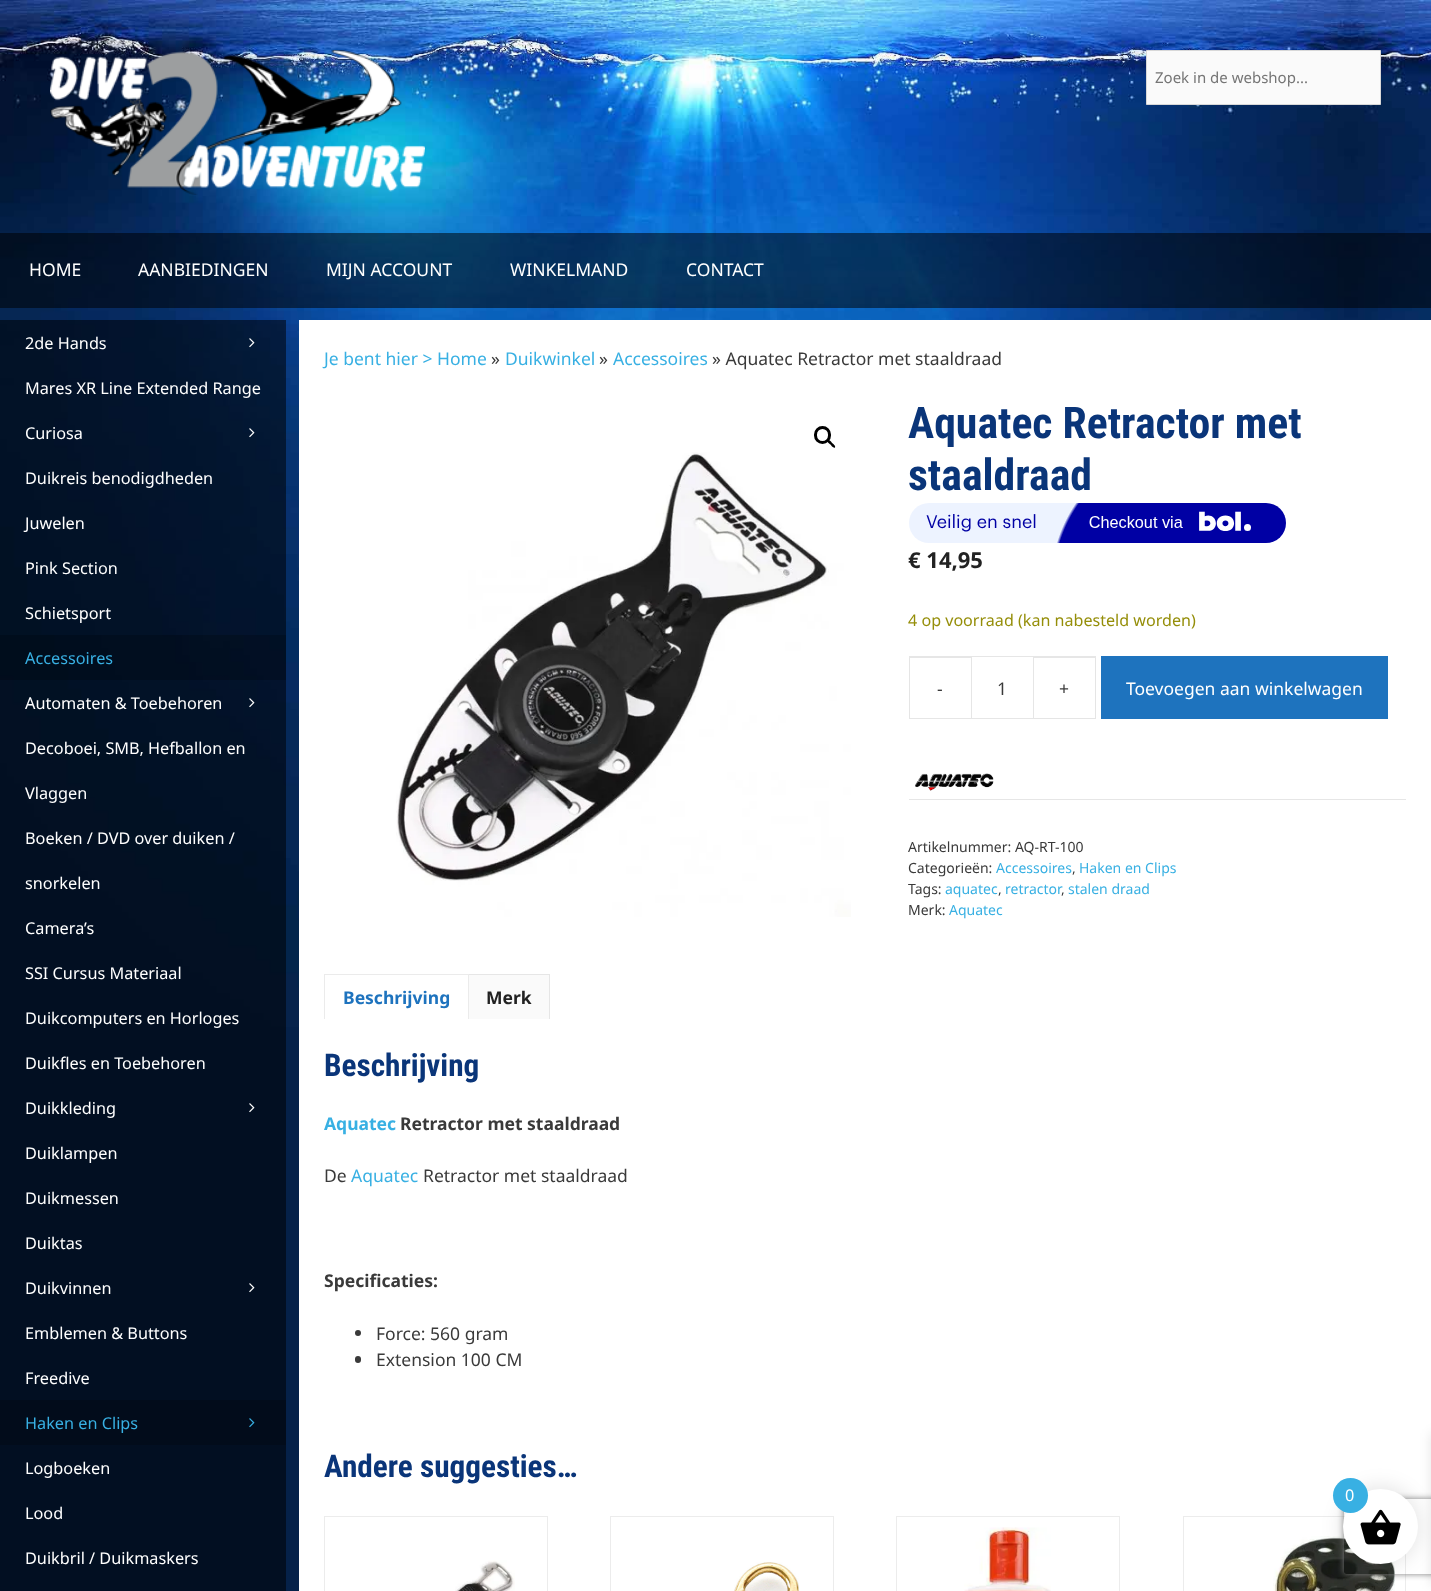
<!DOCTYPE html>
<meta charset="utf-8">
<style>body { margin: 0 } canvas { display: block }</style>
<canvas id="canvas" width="1431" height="1591"></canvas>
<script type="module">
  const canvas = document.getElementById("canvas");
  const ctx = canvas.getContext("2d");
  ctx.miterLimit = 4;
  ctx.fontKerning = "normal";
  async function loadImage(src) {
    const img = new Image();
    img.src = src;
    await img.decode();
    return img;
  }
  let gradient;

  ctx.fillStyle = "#052149";
  ctx.fillRect(0, 0, 1431, 1591);
  ctx.drawImage(await loadImage("img1.png"), 0, 0, 1431, 1027);
  ctx.drawImage(await loadImage("img2.png"), 50, 50, 375, 145);
  ctx.fillStyle = "#fafafa";
  ctx.beginPath();
  ctx.rect(1146.5, 50.5, 234, 54);
  ctx.fill();
  ctx.strokeStyle = "#d8d8d8";
  ctx.stroke();
  ctx.font = "15px Noto Sans";
  ctx.fillStyle = "#757575";
  ctx.fillText("Zoek in de webshop...", 1155, 83);
  ctx.fillStyle = "rgba(0, 0, 0, 0.53)";
  ctx.fillRect(0, 233, 1431, 75);
  ctx.font = "17.5px Noto Sans";
  ctx.fillStyle = "#ffffff";
  ctx.fillText("HOME", 29, 276);
  ctx.fillText("AANBIEDINGEN", 138, 276);
  ctx.fillText("MIJN ACCOUNT", 326, 276);
  ctx.fillText("WINKELMAND", 510, 276);
  ctx.fillText("CONTACT", 686, 276);
  ctx.fillStyle = "rgba(0, 0, 0, 0.53)";
  ctx.fillRect(0, 320, 286, 1271);
  ctx.font = "16.25px Noto Sans";
  ctx.fillStyle = "#ffffff";
  ctx.fillText("2de Hands", 25, 349);
  ctx.drawImage(await loadImage("img3.png"), 249, 338, 6, 10);
  ctx.fillText("Mares XR Line Extended Range", 25, 394);
  ctx.fillText("Curiosa", 25, 439);
  ctx.drawImage(await loadImage("img4.png"), 249, 428, 6, 10);
  ctx.fillText("Duikreis benodigdheden", 25, 484);
  ctx.fillText("Juwelen", 25, 529);
  ctx.fillText("Pink Section", 25, 574);
  ctx.fillText("Schietsport", 25, 619);
  ctx.fillStyle = "rgba(0, 0, 0, 0.2)";
  ctx.fillRect(0, 635, 286, 45);
  ctx.fillStyle = "#38b0e3";
  ctx.fillText("Accessoires", 25, 664);
  ctx.fillStyle = "#ffffff";
  ctx.fillText("Automaten & Toebehoren", 25, 709);
  ctx.drawImage(await loadImage("img5.png"), 249, 698, 6, 10);
  ctx.fillText("Decoboei, SMB, Hefballon en", 25, 754);
  ctx.fillText("Vlaggen", 25, 799);
  ctx.fillText("Boeken / DVD over duiken /", 25, 844);
  ctx.fillText("snorkelen", 25, 889);
  ctx.fillText("Camera’s", 25, 934);
  ctx.fillText("SSI Cursus Materiaal", 25, 979);
  ctx.fillText("Duikcomputers en Horloges", 25, 1024);
  ctx.fillText("Duikfles en Toebehoren", 25, 1069);
  ctx.fillText("Duikkleding", 25, 1114);
  ctx.drawImage(await loadImage("img6.png"), 249, 1103, 6, 10);
  ctx.fillText("Duiklampen", 25, 1159);
  ctx.fillText("Duikmessen", 25, 1204);
  ctx.fillText("Duiktas", 25, 1249);
  ctx.fillText("Duikvinnen", 25, 1294);
  ctx.drawImage(await loadImage("img6.png"), 249, 1283, 6, 10);
  ctx.fillText("Emblemen & Buttons", 25, 1339);
  ctx.fillText("Freedive", 25, 1384);
  ctx.fillStyle = "#020c1b";
  ctx.fillRect(0, 1400, 286, 45);
  ctx.fillStyle = "#38b0e3";
  ctx.fillText("Haken en Clips", 25, 1429);
  ctx.drawImage(await loadImage("img7.png"), 249, 1418, 6, 10);
  ctx.fillStyle = "#ffffff";
  ctx.fillText("Logboeken", 25, 1474);
  ctx.fillText("Lood", 25, 1519);
  ctx.fillText("Duikbril / Duikmaskers", 25, 1564);
  ctx.fillRect(299, 320, 1132, 1271);
  ctx.font = "17.5px Noto Sans";
  ctx.fillStyle = "#38b0e3";
  ctx.fillText("Je bent hier > Home", 324, 365);
  ctx.fillStyle = "#3a3a3a";
  ctx.fillText("»", 491, 365);
  ctx.fillStyle = "#38b0e3";
  ctx.fillText("Duikwinkel", 505, 365);
  ctx.fillStyle = "#3a3a3a";
  ctx.fillText("»", 599, 365);
  ctx.fillStyle = "#38b0e3";
  ctx.fillText("Accessoires", 613, 365);
  ctx.fillStyle = "#3a3a3a";
  ctx.fillText("» Aquatec Retractor met staaldraad", 712, 365);
  ctx.beginPath();
  ctx.roundRect(815.5, 427.5, 14, 15, 7);
  ctx.strokeStyle = "#000000";
  ctx.lineWidth = 3;
  ctx.stroke();
  ctx.fillStyle = "#000000";
  ctx.beginPath();
  ctx.moveTo(827.5, 440);
  ctx.bezierCurveTo(829, 439, 831.5, 442, 832, 443);
  ctx.bezierCurveTo(833, 443.5, 836, 446, 835, 447.5);
  ctx.bezierCurveTo(833.5, 448.5, 831, 445.5, 830.5, 444.5);
  ctx.bezierCurveTo(829.5, 444, 826.5, 441.5, 827.5, 440);
  ctx.closePath();
  ctx.fill();
  ctx.drawImage(await loadImage("img8.png"), 396, 452, 455, 465);
  ctx.font = "bold 43.75px Roboto Condensed";
  ctx.fillStyle = "#0a3579";
  ctx.fillText("Aquatec Retractor met", 908, 438);
  ctx.fillText("staaldraad", 908, 490);
  gradient = ctx.createRadialGradient(1192, 583, 0, 1192, 583, 294);
  gradient.addColorStop(0.47, "#0000a4");
  gradient.addColorStop(0.48, "#edf3ff");
  ctx.fillStyle = gradient;
  ctx.beginPath();
  ctx.roundRect(909, 503, 377, 40, 20);
  ctx.fill();
  ctx.font = "18px Graphik";
  ctx.fillStyle = "#0000a4";
  ctx.fillText("Veilig en snel", 926, 528);
  ctx.drawImage(await loadImage("img9.png"), 1089, 511, 162, 20);
  ctx.font = "bold 22px Noto Sans";
  ctx.fillStyle = "#222222";
  ctx.fillText("€ 14,95", 908, 568);
  ctx.font = "16.1px Noto Sans";
  ctx.fillStyle = "#958e09";
  ctx.fillText("4 op voorraad (kan nabesteld worden)", 908, 626);
  ctx.fillStyle = "#e6e6e6";
  ctx.beginPath();
  ctx.moveTo(909, 656);
  ctx.lineTo(971, 656);
  ctx.lineTo(971, 658);
  ctx.lineTo(910, 658);
  ctx.closePath();
  ctx.moveTo(971, 719);
  ctx.lineTo(909, 719);
  ctx.lineTo(910, 718);
  ctx.lineTo(971, 718);
  ctx.closePath();
  ctx.fill();
  ctx.fillStyle = "rgba(0, 0, 0, 0.1)";
  ctx.beginPath();
  ctx.moveTo(909, 719);
  ctx.lineTo(909, 656);
  ctx.lineTo(910, 658);
  ctx.lineTo(910, 718);
  ctx.closePath();
  ctx.fill();
  ctx.font = "17.5px Noto Sans";
  ctx.fillStyle = "#3a3a3a";
  ctx.fillText("-", 937, 695);
  ctx.strokeStyle = "#e6e6e6";
  ctx.lineWidth = 1;
  ctx.strokeRect(971.5, 656.5, 62, 62);
  ctx.fillText("1", 997, 695);
  ctx.fillStyle = "#e6e6e6";
  ctx.beginPath();
  ctx.moveTo(1034, 656);
  ctx.lineTo(1096, 656);
  ctx.lineTo(1095, 658);
  ctx.lineTo(1034, 658);
  ctx.closePath();
  ctx.fill();
  ctx.fillStyle = "rgba(0, 0, 0, 0.1)";
  ctx.beginPath();
  ctx.moveTo(1096, 656);
  ctx.lineTo(1096, 719);
  ctx.lineTo(1095, 718);
  ctx.lineTo(1095, 658);
  ctx.closePath();
  ctx.fill();
  ctx.beginPath();
  ctx.moveTo(1096, 719);
  ctx.lineTo(1034, 719);
  ctx.lineTo(1034, 718);
  ctx.lineTo(1095, 718);
  ctx.closePath();
  ctx.fill();
  ctx.fillStyle = "#3a3a3a";
  ctx.fillText("+", 1059, 695);
  ctx.fillStyle = "#1e73be";
  ctx.fillRect(1101, 656, 287, 63);
  ctx.fillStyle = "#ffffff";
  ctx.fillText("Toevoegen aan winkelwagen", 1126, 695);
  ctx.drawImage(await loadImage("img10.png"), 915, 773, 79, 18);
  ctx.fillStyle = "#e6e6e6";
  ctx.fillRect(909, 799, 497, 1);
  ctx.font = "14px Noto Sans";
  ctx.fillStyle = "#3a3a3a";
  ctx.fillText("Artikelnummer: AQ-RT-100", 908, 852);
  ctx.fillText("Categorieën:", 908, 873);
  ctx.fillStyle = "#38b0e3";
  ctx.fillText("Accessoires", 996, 873);
  ctx.fillStyle = "#3a3a3a";
  ctx.fillText(",", 1072, 873);
  ctx.fillStyle = "#38b0e3";
  ctx.fillText("Haken en Clips", 1079, 873);
  ctx.fillStyle = "#3a3a3a";
  ctx.fillText("Tags:", 908, 894);
  ctx.fillStyle = "#38b0e3";
  ctx.fillText("aquatec", 945, 894);
  ctx.fillStyle = "#3a3a3a";
  ctx.fillText(",", 998, 894);
  ctx.fillStyle = "#38b0e3";
  ctx.fillText("retractor", 1005, 894);
  ctx.fillText("stalen draad", 1068, 894);
  ctx.fillStyle = "#3a3a3a";
  ctx.fillText(",", 1061, 894);
  ctx.fillText("Merk:", 908, 915);
  ctx.fillStyle = "#38b0e3";
  ctx.fillText("Aquatec", 949, 915);
  ctx.fillStyle = "#ebebeb";
  ctx.beginPath();
  ctx.moveTo(324, 974);
  ctx.lineTo(469, 974);
  ctx.lineTo(468, 975);
  ctx.lineTo(325, 975);
  ctx.closePath();
  ctx.fill();
  ctx.fillStyle = "rgba(0, 0, 0, 0.08)";
  ctx.beginPath();
  ctx.moveTo(469, 974);
  ctx.lineTo(469, 1019);
  ctx.lineTo(468, 1019);
  ctx.lineTo(468, 975);
  ctx.closePath();
  ctx.fill();
  ctx.beginPath();
  ctx.moveTo(324, 1019);
  ctx.lineTo(324, 974);
  ctx.lineTo(325, 975);
  ctx.lineTo(325, 1019);
  ctx.closePath();
  ctx.fill();
  ctx.font = "bold 17.5px Noto Sans";
  ctx.fillStyle = "#1e73be";
  ctx.fillText("Beschrijving", 343, 1004);
  ctx.fillStyle = "#fafafa";
  ctx.fillRect(469, 974, 81, 45);
  ctx.fillStyle = "#e6e6e6";
  ctx.beginPath();
  ctx.moveTo(469, 974);
  ctx.lineTo(550, 974);
  ctx.lineTo(549, 975);
  ctx.lineTo(469, 975);
  ctx.closePath();
  ctx.fill();
  ctx.fillStyle = "rgba(0, 0, 0, 0.08)";
  ctx.beginPath();
  ctx.moveTo(550, 974);
  ctx.lineTo(550, 1019);
  ctx.lineTo(549, 1019);
  ctx.lineTo(549, 975);
  ctx.closePath();
  ctx.fill();
  ctx.fillStyle = "#222222";
  ctx.fillText("Merk", 486, 1004);
  ctx.font = "bold 31.25px Roboto Condensed";
  ctx.fillStyle = "#0a3579";
  ctx.fillText("Beschrijving", 324, 1076);
  ctx.font = "bold 17.5px Noto Sans";
  ctx.fillStyle = "#38b0e3";
  ctx.fillText("Aquatec", 324, 1130);
  ctx.fillStyle = "#3a3a3a";
  ctx.fillText("Retractor met staaldraad", 400, 1130);
  ctx.font = "17.5px Noto Sans";
  ctx.fillText("De", 324, 1182);
  ctx.fillStyle = "#38b0e3";
  ctx.fillText("Aquatec", 351, 1182);
  ctx.fillStyle = "#3a3a3a";
  ctx.fillText("Retractor met staaldraad", 423, 1182);
  ctx.font = "bold 17.5px Noto Sans";
  ctx.fillText("Specificaties:", 324, 1287);
  ctx.beginPath();
  ctx.arc(358, 1333, 3, 0, Math.PI * 2);
  ctx.fill();
  ctx.font = "17.5px Noto Sans";
  ctx.fillText("Force: 560 gram", 376, 1340);
  ctx.beginPath();
  ctx.roundRect(355, 1356, 6, 7, 3);
  ctx.fill();
  ctx.fillText("Extension 100 CM", 376, 1366);
  ctx.font = "bold 31.25px Roboto Condensed";
  ctx.fillStyle = "#0a3579";
  ctx.fillText("Andere suggesties…", 324, 1477);
  ctx.strokeStyle = "#ececec";
  ctx.strokeRect(324.5, 1516.5, 223, 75);
  ctx.drawImage(await loadImage("img11.png"), 455, 1560, 60, 31);
  ctx.strokeRect(610.5, 1516.5, 223, 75);
  ctx.drawImage(await loadImage("img12.png"), 734, 1562, 66, 29);
  ctx.strokeRect(896.5, 1516.5, 223, 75);
  ctx.drawImage(await loadImage("img13.png"), 964, 1527, 87, 64);
  ctx.strokeRect(1183.5, 1516.5, 222, 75);
  ctx.drawImage(await loadImage("img14.png"), 1273, 1536, 122, 55);
  ctx.save();
  ctx.beginPath();
  ctx.moveTo(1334, 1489);
  ctx.lineTo(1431, 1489);
  ctx.lineTo(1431, 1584);
  ctx.lineTo(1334, 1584);
  ctx.closePath();
  ctx.moveTo(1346.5, 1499);
  ctx.lineTo(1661.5, 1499);
  ctx.bezierCurveTo(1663, 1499, 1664, 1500, 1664, 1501.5);
  ctx.lineTo(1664, 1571.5);
  ctx.bezierCurveTo(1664, 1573, 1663, 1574, 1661.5, 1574);
  ctx.lineTo(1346.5, 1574);
  ctx.bezierCurveTo(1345, 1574, 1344, 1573, 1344, 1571.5);
  ctx.lineTo(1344, 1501.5);
  ctx.bezierCurveTo(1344, 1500, 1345, 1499, 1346.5, 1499);
  ctx.closePath();
  ctx.clip("evenodd");
  ctx.fillStyle = "#808080";
  ctx.filter = "blur(3px)";
  ctx.beginPath();
  ctx.roundRect(1344, 1499, 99, 75, 2.5);
  ctx.fill();
  ctx.filter = "none";
  ctx.restore();
  ctx.fillStyle = "rgba(0, 0, 0, 0.1)";
  ctx.filter = "blur(9.5px)";
  ctx.beginPath();
  ctx.roundRect(1340, 1486, 80, 80, 40);
  ctx.fill();
  ctx.filter = "none";
  ctx.filter = "blur(6px)";
  ctx.beginPath();
  ctx.rect(1431, 1433, 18, 152);
  ctx.fill();
  ctx.filter = "none";
  ctx.fillStyle = "#ffffff";
  ctx.beginPath();
  ctx.arc(1380.5, 1526.5, 37.5, 0, Math.PI * 2);
  ctx.fill();
  ctx.drawImage(await loadImage("img15.png"), 1360, 1509, 41, 36);
  ctx.fillStyle = "#38b0e3";
  ctx.beginPath();
  ctx.arc(1350.5, 1495.5, 17.5, 0, Math.PI * 2);
  ctx.fill();
  ctx.font = "16.25px Noto Sans";
  ctx.fillStyle = "#ffffff";
  ctx.fillText("0", 1345, 1501);
</script>
